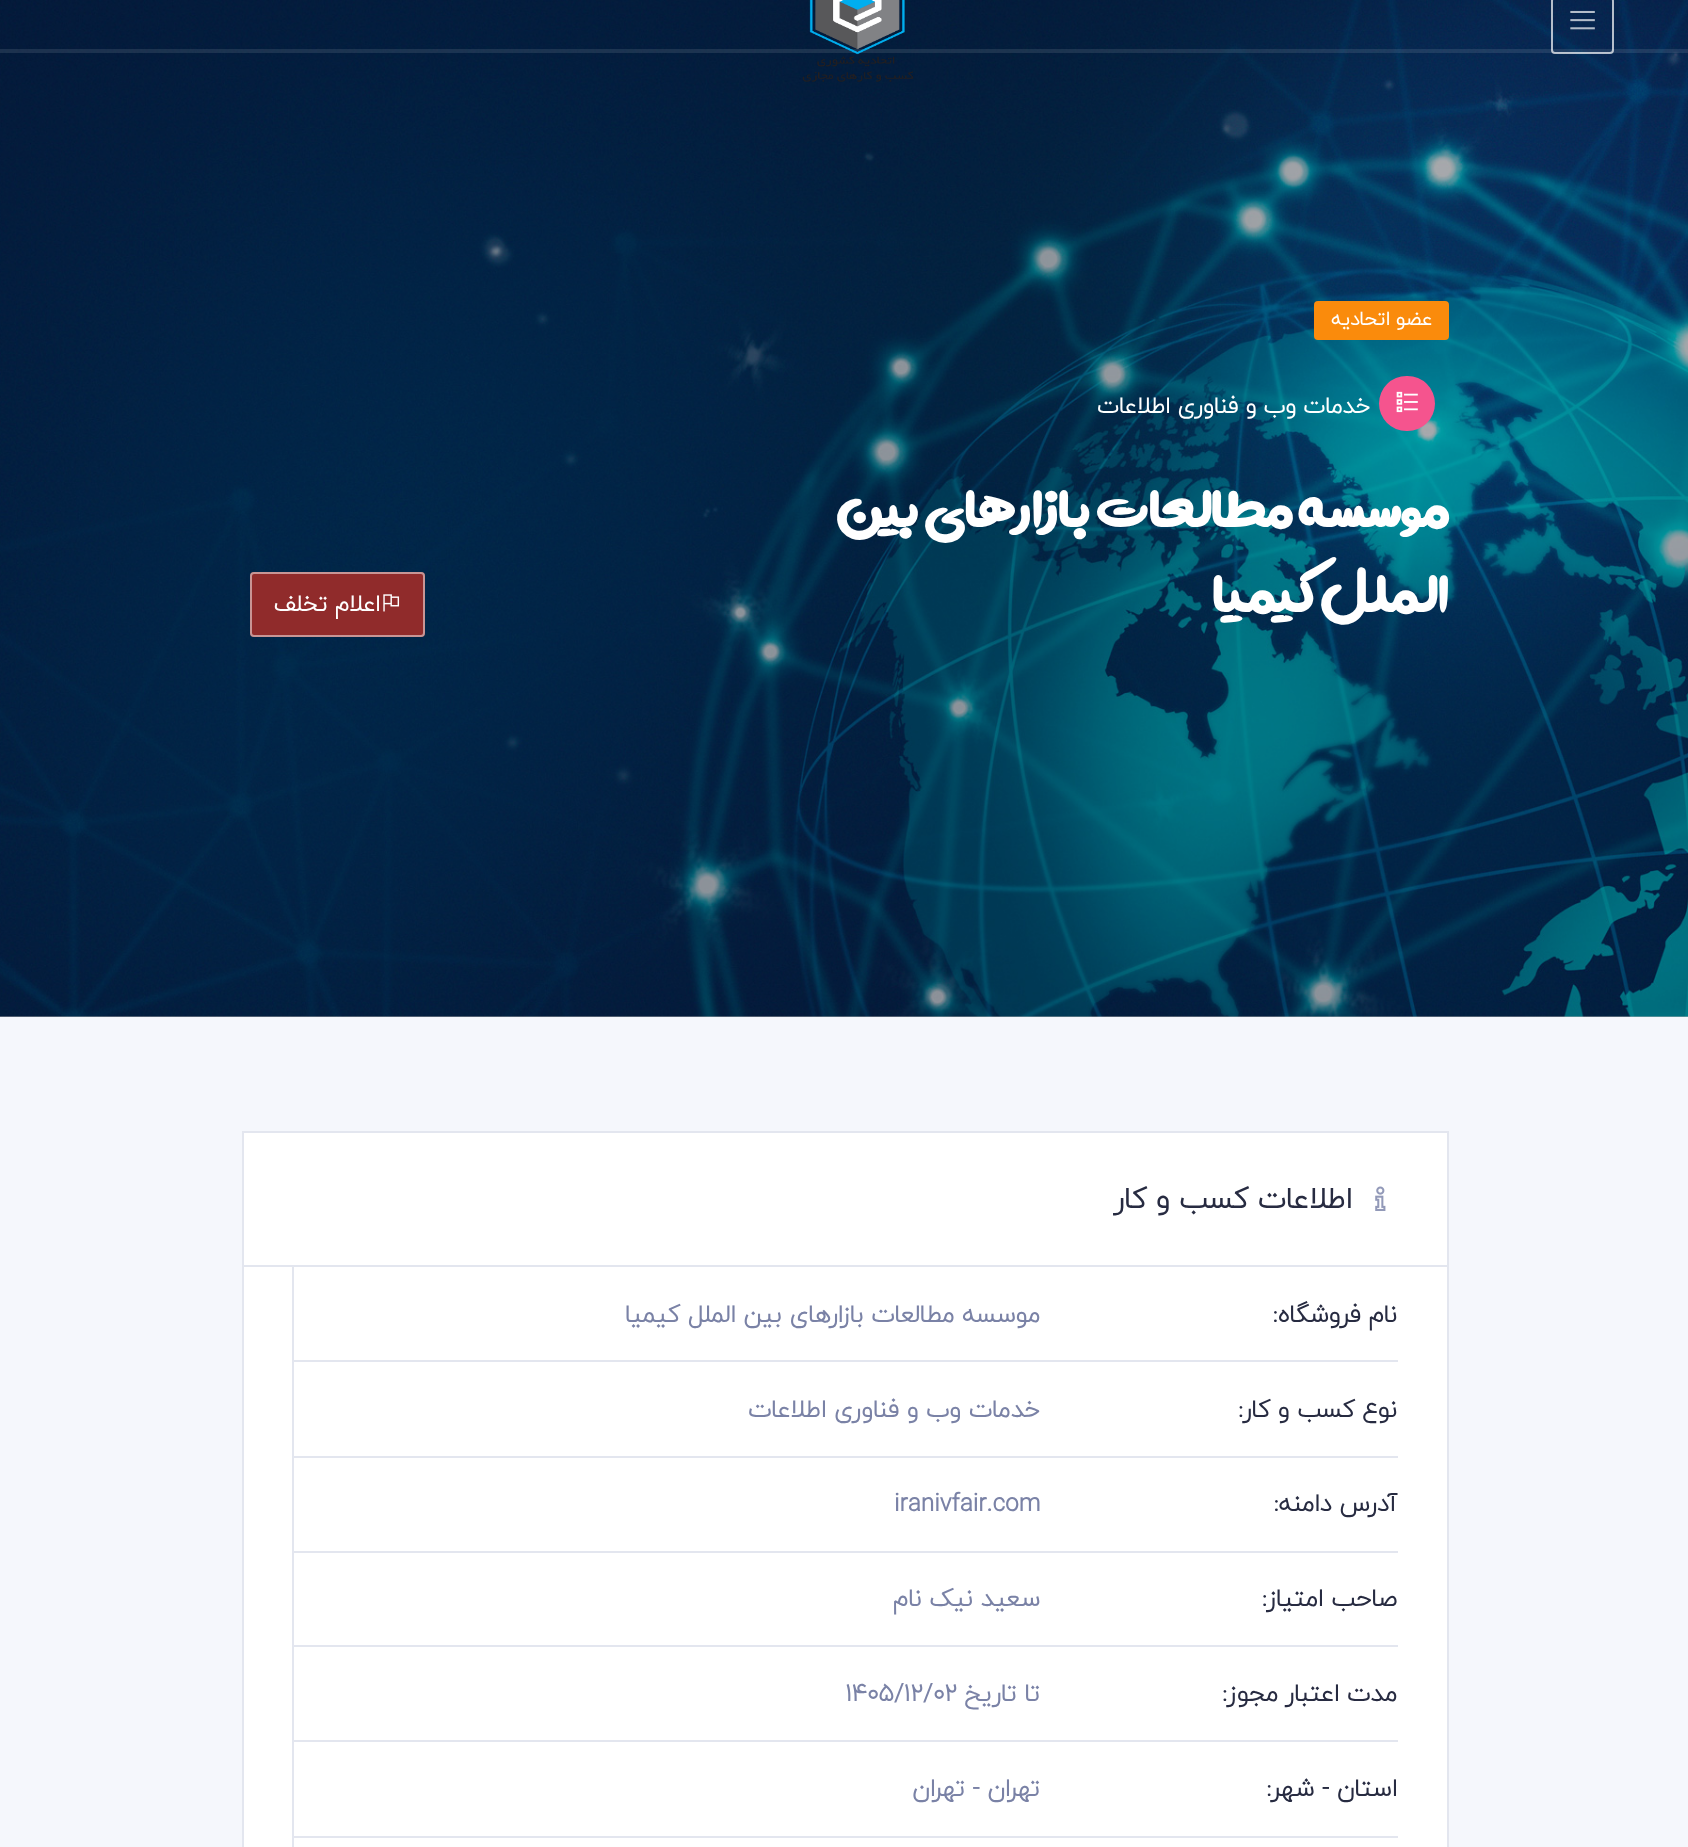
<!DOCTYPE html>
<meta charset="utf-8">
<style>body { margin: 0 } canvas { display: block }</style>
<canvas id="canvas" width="1688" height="1847"></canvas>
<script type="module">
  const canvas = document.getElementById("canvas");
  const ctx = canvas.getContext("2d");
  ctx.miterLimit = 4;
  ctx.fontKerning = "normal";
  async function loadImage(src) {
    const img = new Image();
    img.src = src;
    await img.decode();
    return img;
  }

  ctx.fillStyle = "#b3b3b3";
  ctx.fillRect(0, 0, 1688, 1847);
  ctx.drawImage(await loadImage("img3.png"), 0, 0, 1688, 1017);
  ctx.fillStyle = "rgba(255, 255, 255, 0.1)";
  ctx.fillRect(0, 51, 1688, 2);
  ctx.fillRect(0, 49, 1688, 2);
  ctx.beginPath();
  ctx.roundRect(1552, -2, 61, 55, 3);
  ctx.strokeStyle = "rgba(255, 255, 255, 0.7)";
  ctx.lineWidth = 2;
  ctx.stroke();
  ctx.drawImage(await loadImage("img1.png"), 1570, 10, 25, 20);
  ctx.drawImage(await loadImage("img2.png"), 802, 0, 112, 82);
  ctx.fillStyle = "#fa8b0c";
  ctx.beginPath();
  ctx.roundRect(1314, 301, 135, 39, 4);
  ctx.fill();
  ctx.direction = "rtl";
  ctx.font = "bold 19.5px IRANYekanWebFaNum";
  ctx.fillStyle = "#ffffff";
  ctx.fillText("عضو اتحادیه", 1432, 325);
  ctx.fillStyle = "#f5548e";
  ctx.beginPath();
  ctx.roundRect(1379, 376, 56, 55, 27.5);
  ctx.fill();
  ctx.drawImage(await loadImage("img4.png"), 1396, 391, 22, 22);
  ctx.font = "bold 22.9px IRANYekanWebFaNum";
  ctx.fillStyle = "#ffffff";
  ctx.fillText("خدمات وب و فناوری اطلاعات", 1370, 413);
  ctx.font = "bold 71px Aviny";
  ctx.fillText("موسسه مطالعات بازارهای بین", 1448, 527);
  ctx.fillText("الملل کیمیا", 1448, 612);
  ctx.fillStyle = "#902b2b";
  ctx.beginPath();
  ctx.roundRect(250, 572, 175, 65, 4);
  ctx.fill();
  ctx.beginPath();
  ctx.roundRect(251, 573, 173, 63, 3);
  ctx.strokeStyle = "rgba(255, 255, 255, 0.5)";
  ctx.stroke();
  ctx.drawImage(await loadImage("img5.png"), 383, 594, 17, 18);
  ctx.font = "bold 22.9px IRANYekanWebFaNum";
  ctx.fillStyle = "#ffffff";
  ctx.fillText("اعلام تخلف", 380, 611);
  ctx.fillStyle = "#f5f7fc";
  ctx.fillRect(0, 1017, 1688, 830);
  ctx.fillStyle = "#ffffff";
  ctx.beginPath();
  ctx.rect(243, 1132, 1205, 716);
  ctx.fill();
  ctx.strokeStyle = "#e3e6ef";
  ctx.stroke();
  ctx.fillStyle = "#e3e6ef";
  ctx.fillRect(243, 1265, 1204, 2);
  ctx.drawImage(await loadImage("img6.png"), 1375, 1186, 11, 25);
  ctx.font = "bold 29.5px IRANYekanWebFaNum";
  ctx.fillStyle = "#272b41";
  ctx.fillText("اطلاعات کسب و کار", 1352, 1208);
  ctx.fillStyle = "#e3e6ef";
  ctx.fillRect(292, 1360, 1106, 2);
  ctx.font = "bold 24.5px IRANYekanWebFaNum";
  ctx.fillStyle = "#272b41";
  ctx.fillText("نام فروشگاه:", 1397, 1322);
  ctx.fillStyle = "#e3e6ef";
  ctx.fillRect(292, 1267, 2, 93);
  ctx.fillStyle = "#7a82a6";
  ctx.fillText("موسسه مطالعات بازارهای بین الملل کیمیا", 1040, 1322);
  ctx.fillStyle = "#e3e6ef";
  ctx.fillRect(292, 1456, 1106, 2);
  ctx.fillStyle = "#272b41";
  ctx.fillText("نوع کسب و کار:", 1397, 1417);
  ctx.fillStyle = "#e3e6ef";
  ctx.fillRect(292, 1362, 2, 94);
  ctx.fillStyle = "#7a82a6";
  ctx.fillText("خدمات وب و فناوری اطلاعات", 1040, 1417);
  ctx.fillStyle = "#e3e6ef";
  ctx.fillRect(292, 1551, 1106, 2);
  ctx.fillStyle = "#272b41";
  ctx.fillText("آدرس دامنه:", 1397, 1511);
  ctx.fillStyle = "#e3e6ef";
  ctx.fillRect(292, 1458, 2, 93);
  ctx.direction = "ltr";
  ctx.fillStyle = "#7a82a6";
  ctx.fillText("iranivfair.com", 894, 1511);
  ctx.fillStyle = "#e3e6ef";
  ctx.fillRect(292, 1645, 1106, 2);
  ctx.direction = "rtl";
  ctx.fillStyle = "#272b41";
  ctx.fillText("صاحب امتیاز:", 1397, 1606);
  ctx.fillStyle = "#e3e6ef";
  ctx.fillRect(292, 1552, 2, 93);
  ctx.fillStyle = "#7a82a6";
  ctx.fillText("سعید نیک نام", 1040, 1606);
  ctx.fillStyle = "#e3e6ef";
  ctx.fillRect(292, 1740, 1106, 2);
  ctx.fillStyle = "#272b41";
  ctx.fillText("مدت اعتبار مجوز:", 1397, 1701);
  ctx.fillStyle = "#e3e6ef";
  ctx.fillRect(292, 1647, 2, 93);
  ctx.fillStyle = "#7a82a6";
  ctx.fillText("تا تاریخ", 1040, 1701);
  ctx.direction = "ltr";
  ctx.fillText("۱۴۰۵/۱۲/۰۲", 845, 1701);
  ctx.fillStyle = "#e3e6ef";
  ctx.fillRect(292, 1836, 1106, 2);
  ctx.direction = "rtl";
  ctx.fillStyle = "#272b41";
  ctx.fillText("استان - شهر:", 1397, 1796);
  ctx.fillStyle = "#e3e6ef";
  ctx.fillRect(292, 1741, 2, 95);
  ctx.fillStyle = "#7a82a6";
  ctx.fillText("تهران - تهران", 1040, 1796);
  ctx.fillStyle = "#e3e6ef";
  ctx.fillRect(292, 1838, 2, 9);
</script>
